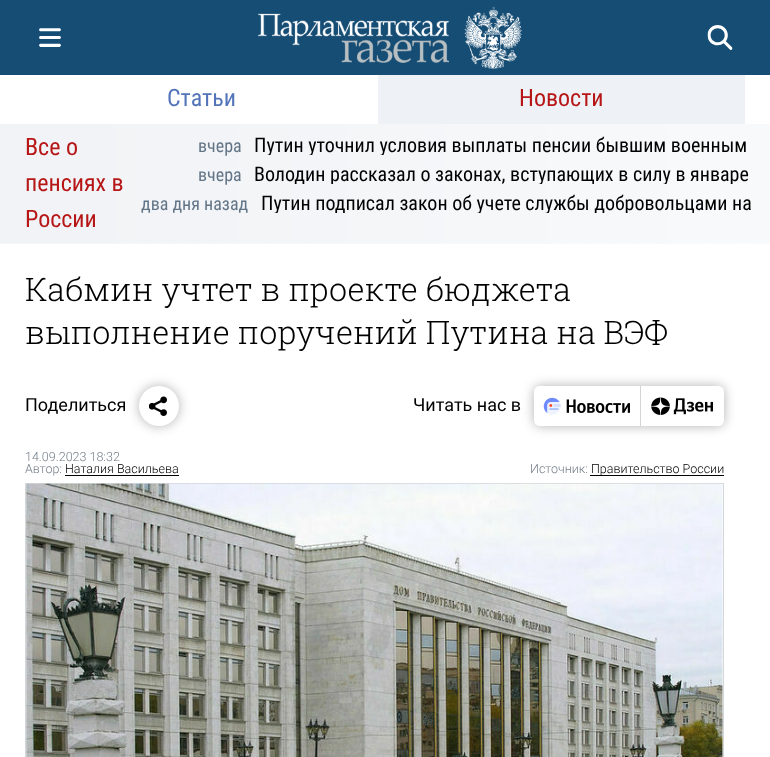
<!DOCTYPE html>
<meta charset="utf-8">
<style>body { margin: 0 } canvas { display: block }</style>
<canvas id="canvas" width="770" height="757"></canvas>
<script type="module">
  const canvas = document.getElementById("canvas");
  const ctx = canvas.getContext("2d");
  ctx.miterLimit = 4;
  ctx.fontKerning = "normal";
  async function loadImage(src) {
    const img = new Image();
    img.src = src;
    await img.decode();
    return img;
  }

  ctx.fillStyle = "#ffffff";
  ctx.fillRect(0, 0, 770, 757);
  ctx.fillStyle = "#164d74";
  ctx.fillRect(0, 0, 770, 75);
  ctx.drawImage(await loadImage("img1.png"), 39, 28, 22, 19);
  ctx.drawImage(await loadImage("img2.png"), 258, 6, 264, 63);
  ctx.drawImage(await loadImage("img3.png"), 707, 25, 26, 25);
  ctx.font = "24px Roboto Condensed";
  ctx.fillStyle = "#5374b8";
  ctx.fillText("Статьи", 167, 106);
  ctx.fillStyle = "#eef2f6";
  ctx.fillRect(378, 75, 367, 49);
  ctx.fillStyle = "#b71616";
  ctx.fillText("Новости", 519, 106);
  ctx.drawImage(await loadImage("img4.png"), 0, 124, 770, 120);
  ctx.fillText("Все о", 25, 155);
  ctx.fillText("пенсиях в", 25, 191);
  ctx.fillText("России", 25, 227);
  ctx.font = "18px Roboto Condensed";
  ctx.fillStyle = "#627587";
  ctx.fillText("вчера", 198, 152);
  ctx.save();
  ctx.beginPath();
  ctx.rect(141, 130, 629, 25);
  ctx.clip();
  ctx.font = "20px Roboto Condensed";
  ctx.fillStyle = "#000000";
  ctx.fillText("Путин уточнил условия выплаты пенсии бывшим военным", 254, 152);
  ctx.restore();
  ctx.fillText("вчера", 198, 181);
  ctx.save();
  ctx.beginPath();
  ctx.rect(141, 159, 629, 25);
  ctx.clip();
  ctx.font = "20px Roboto Condensed";
  ctx.fillStyle = "#000000";
  ctx.fillText("Володин рассказал о законах, вступающих в силу в январе", 254, 181);
  ctx.restore();
  ctx.fillText("два дня назад", 141, 210);
  ctx.save();
  ctx.beginPath();
  ctx.rect(141, 188, 629, 25);
  ctx.clip();
  ctx.font = "20px Roboto Condensed";
  ctx.fillStyle = "#000000";
  ctx.fillText("Путин подписал закон об учете службы добровольцами на", 261, 210);
  ctx.restore();
  ctx.font = "300 32.4px Roboto Slab";
  ctx.fillStyle = "#000000";
  ctx.fillText("Кабмин учтет в проекте бюджета", 25, 301);
  ctx.fillText("выполнение поручений Путина на ВЭФ", 25, 344);
  ctx.font = "18px Roboto";
  ctx.fillText("Поделиться", 25, 411);
  ctx.fillStyle = "rgba(0, 0, 0, 0.3)";
  ctx.filter = "blur(6px)";
  ctx.beginPath();
  ctx.roundRect(139, 386, 40, 40, 20);
  ctx.fill();
  ctx.filter = "none";
  ctx.fillStyle = "#ffffff";
  ctx.beginPath();
  ctx.arc(159, 406, 20, 0, Math.PI * 2);
  ctx.fill();
  ctx.drawImage(await loadImage("img5.png"), 149, 396, 18, 20);
  ctx.fillStyle = "#000000";
  ctx.fillText("Читать нас в", 413, 411);
  ctx.save();
  ctx.beginPath();
  ctx.moveTo(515, 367);
  ctx.lineTo(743, 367);
  ctx.lineTo(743, 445);
  ctx.lineTo(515, 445);
  ctx.closePath();
  ctx.moveTo(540, 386);
  ctx.lineTo(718, 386);
  ctx.bezierCurveTo(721.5, 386, 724, 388.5, 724, 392);
  ctx.lineTo(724, 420);
  ctx.bezierCurveTo(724, 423.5, 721.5, 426, 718, 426);
  ctx.lineTo(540, 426);
  ctx.bezierCurveTo(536.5, 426, 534, 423.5, 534, 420);
  ctx.lineTo(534, 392);
  ctx.bezierCurveTo(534, 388.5, 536.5, 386, 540, 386);
  ctx.closePath();
  ctx.clip("evenodd");
  ctx.fillStyle = "rgba(0, 0, 0, 0.3)";
  ctx.filter = "blur(6px)";
  ctx.beginPath();
  ctx.roundRect(534, 386, 190, 40, 6);
  ctx.fill();
  ctx.filter = "none";
  ctx.restore();
  ctx.drawImage(await loadImage("img6.png"), 543, 397, 87, 18);
  ctx.fillStyle = "#d4d4d4";
  ctx.fillRect(640, 386, 1, 40);
  ctx.drawImage(await loadImage("img7.png"), 651, 397, 62, 18);
  ctx.font = "300 12.5px Roboto";
  ctx.fillStyle = "#747e89";
  ctx.fillText("14.09.2023 18:32", 25, 461);
  ctx.fillText("Автор:", 25, 473);
  ctx.fillStyle = "#000000";
  ctx.fillText("Наталия Васильева", 65, 473);
  ctx.fillRect(65, 475, 114, 1);
  ctx.fillStyle = "#747e89";
  ctx.fillText("Источник:", 530, 473);
  ctx.fillStyle = "#000000";
  ctx.fillRect(590, 475, 134, 1);
  ctx.fillText("Правительство России", 591, 473);
  ctx.strokeStyle = "#d2d7db";
  ctx.strokeRect(25.5, 483.5, 698, 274);
  ctx.drawImage(await loadImage("img8.png"), 26, 483, 697, 274);
</script>
